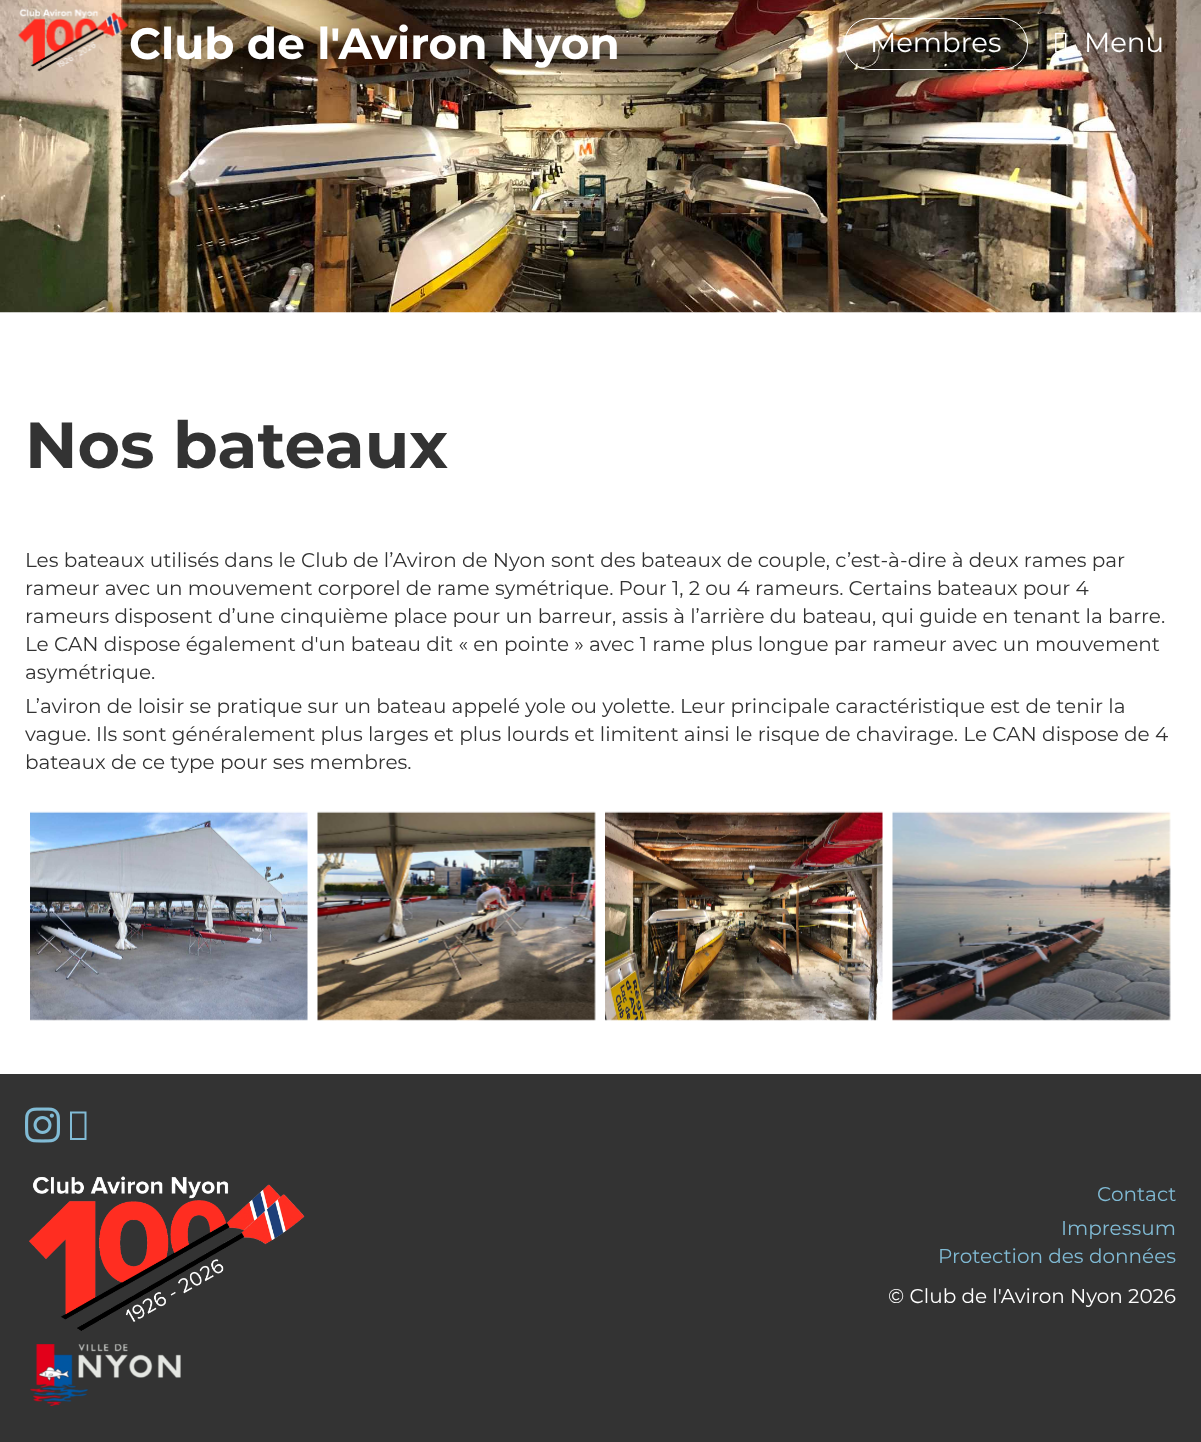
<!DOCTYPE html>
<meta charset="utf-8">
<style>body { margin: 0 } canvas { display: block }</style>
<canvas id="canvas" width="1201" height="1442"></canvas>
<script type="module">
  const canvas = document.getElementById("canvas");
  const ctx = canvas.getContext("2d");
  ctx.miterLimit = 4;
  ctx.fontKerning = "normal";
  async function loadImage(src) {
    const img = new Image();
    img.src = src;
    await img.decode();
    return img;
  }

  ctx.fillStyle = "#ffffff";
  ctx.fillRect(0, 0, 1201, 1442);
  ctx.drawImage(await loadImage("img3.png"), 0, 0, 1201, 313);
  ctx.drawImage(await loadImage("img1.png"), 18, 8, 111, 64);
  ctx.font = "bold 43.75px Montserrat";
  ctx.fillText("Club de l'Aviron Nyon", 129, 59);
  ctx.beginPath();
  ctx.roundRect(844.5, 18.5, 183, 51, 25.5);
  ctx.strokeStyle = "#ffffff";
  ctx.stroke();
  ctx.font = "27.5px Montserrat";
  ctx.fillText("Membres", 870, 52);
  ctx.drawImage(await loadImage("img2.png"), 1055, 32, 12, 21);
  ctx.fillText("Menu", 1084, 52);
  ctx.font = "bold 65px Montserrat";
  ctx.fillStyle = "#333333";
  ctx.fillText("Nos bateaux", 25, 468);
  ctx.font = "20px Montserrat";
  ctx.fillText("Les bateaux utilisés dans le Club de l’Aviron de Nyon sont des bateaux de couple, c’est-à-dire à deux rames par", 25, 567);
  ctx.fillText("rameur avec un mouvement corporel de rame symétrique. Pour 1, 2 ou 4 rameurs. Certains bateaux pour 4", 25, 595);
  ctx.fillText("rameurs disposent d’une cinquième place pour un barreur, assis à l’arrière du bateau, qui guide en tenant la barre.", 25, 623);
  ctx.fillText("Le CAN dispose également d'un bateau dit « en pointe » avec 1 rame plus longue par rameur avec un mouvement", 25, 651);
  ctx.fillText("asymétrique.", 25, 679);
  ctx.fillText("L’aviron de loisir se pratique sur un bateau appelé yole ou yolette. Leur principale caractéristique est de tenir la", 25, 713);
  ctx.fillText("vague. Ils sont généralement plus larges et plus lourds et limitent ainsi le risque de chavirage. Le CAN dispose de 4", 25, 741);
  ctx.fillText("bateaux de ce type pour ses membres.", 25, 769);
  ctx.drawImage(await loadImage("img4.png"), 30, 811, 278, 210);
  ctx.drawImage(await loadImage("img5.png"), 317, 811, 279, 210);
  ctx.drawImage(await loadImage("img6.png"), 605, 811, 278, 210);
  ctx.drawImage(await loadImage("img7.png"), 892, 811, 279, 210);
  ctx.fillRect(0, 1074, 1201, 368);
  ctx.drawImage(await loadImage("img8.png"), 25, 1107, 35, 36);
  ctx.fillStyle = "#81bbd5";
  ctx.beginPath();
  ctx.moveTo(70, 1140);
  ctx.lineTo(70, 1111.5);
  ctx.lineTo(86.5, 1111.5);
  ctx.lineTo(86.5, 1140);
  ctx.closePath();
  ctx.moveTo(72, 1138);
  ctx.lineTo(84.5, 1138);
  ctx.lineTo(84.5, 1113.5);
  ctx.lineTo(72, 1113.5);
  ctx.closePath();
  ctx.fill();
  ctx.drawImage(await loadImage("img9.png"), 29, 1176, 276, 155);
  ctx.drawImage(await loadImage("img10.png"), 30, 1344, 151, 62);
  ctx.fillText("Contact", 1097, 1201);
  ctx.fillText("Impressum", 1061, 1235);
  ctx.fillText("Protection des données", 938, 1263);
  ctx.fillStyle = "#ffffff";
  ctx.fillText("© Club de l'Aviron Nyon 2026", 888, 1303);
</script>
